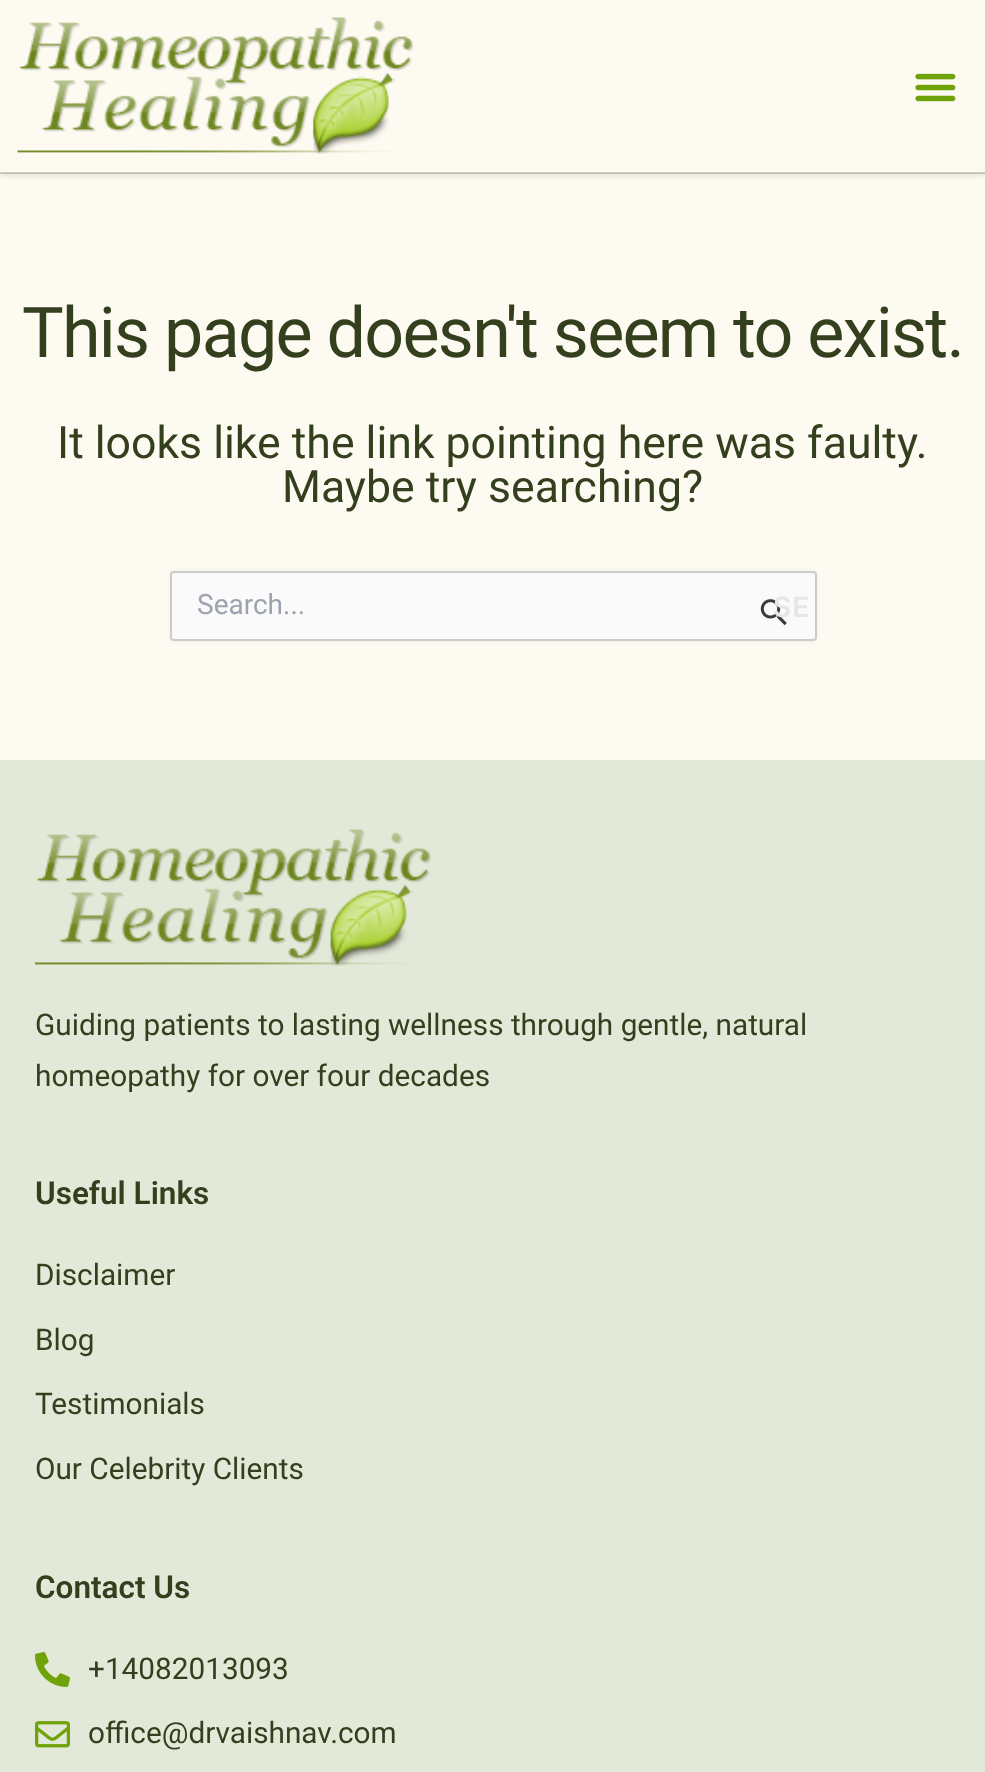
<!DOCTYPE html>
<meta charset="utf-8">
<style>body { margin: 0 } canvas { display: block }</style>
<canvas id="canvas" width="985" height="1772"></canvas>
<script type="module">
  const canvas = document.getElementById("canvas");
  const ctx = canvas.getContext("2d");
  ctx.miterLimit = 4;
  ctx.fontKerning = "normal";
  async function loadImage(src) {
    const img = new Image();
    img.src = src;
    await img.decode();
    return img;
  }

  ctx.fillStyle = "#fdfaf1";
  ctx.fillRect(0, 0, 985, 1772);
  ctx.save();
  ctx.beginPath();
  ctx.rect(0, 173, 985, 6);
  ctx.clip();
  ctx.fillStyle = "rgba(0, 0, 0, 0.12)";
  ctx.filter = "blur(4.5px)";
  ctx.beginPath();
  ctx.rect(0, 2, 985, 173);
  ctx.fill();
  ctx.filter = "none";
  ctx.restore();
  ctx.fillStyle = "rgba(53, 64, 31, 0.24)";
  ctx.fillRect(0, 172, 985, 2);
  ctx.drawImage(await loadImage("img1.png"), 17, 17, 396, 137);
  ctx.drawImage(await loadImage("img2.png"), 915, 73, 41, 29);
  ctx.letterSpacing = "-1.75px";
  ctx.font = "70px Roboto";
  ctx.fillStyle = "#343f1e";
  ctx.fillText("This page doesn't seem to exist.", 22, 357);
  ctx.letterSpacing = "0px";
  ctx.font = "44.6px Roboto";
  ctx.fillText("It looks like the link pointing here was faulty.", 57, 458);
  ctx.fillText("Maybe try searching?", 282, 502);
  ctx.fillStyle = "rgba(0, 0, 0, 0.05)";
  ctx.filter = "blur(2px)";
  ctx.beginPath();
  ctx.roundRect(170, 572, 647, 70, 4);
  ctx.fill();
  ctx.filter = "none";
  ctx.fillStyle = "#fafafa";
  ctx.beginPath();
  ctx.roundRect(170, 571, 647, 70, 4);
  ctx.fill();
  ctx.beginPath();
  ctx.roundRect(171, 572, 645, 68, 3);
  ctx.strokeStyle = "rgba(53, 64, 31, 0.24)";
  ctx.lineWidth = 2;
  ctx.stroke();
  ctx.font = "28px Roboto";
  ctx.fillStyle = "#9ca3af";
  ctx.fillText("Search...", 197, 614);
  ctx.drawImage(await loadImage("img3.png"), 760, 599, 27, 27);
  ctx.letterSpacing = "1px";
  ctx.font = "600 28px Inter";
  ctx.fillStyle = "#e6e6e5";
  ctx.fillText("SE", 773, 617);
  ctx.fillStyle = "#e3e9d8";
  ctx.fillRect(0, 760, 985, 1012);
  ctx.drawImage(await loadImage("img4.png"), 35, 829, 396, 137);
  ctx.letterSpacing = "0px";
  ctx.font = "29.75px Roboto";
  ctx.fillStyle = "#343f1e";
  ctx.fillText("Guiding patients to lasting wellness through gentle, natural", 35, 1035);
  ctx.fillText("homeopathy for over four decades", 35, 1086);
  ctx.font = "600 31.5px Roboto";
  ctx.fillText("Useful Links", 35, 1204);
  ctx.font = "29.75px Roboto";
  ctx.fillText("Disclaimer", 35, 1285);
  ctx.fillText("Blog", 35, 1350);
  ctx.fillText("Testimonials", 35, 1414);
  ctx.fillText("Our Celebrity Clients", 35, 1479);
  ctx.font = "600 31.5px Roboto";
  ctx.fillText("Contact Us", 35, 1598);
  ctx.drawImage(await loadImage("img5.png"), 35, 1652, 35, 35);
  ctx.font = "29.75px Roboto";
  ctx.fillText("+14082013093", 88, 1679);
  ctx.drawImage(await loadImage("img6.png"), 35, 1721, 35, 27);
  ctx.fillText("office@drvaishnav.com", 88, 1743);
</script>
